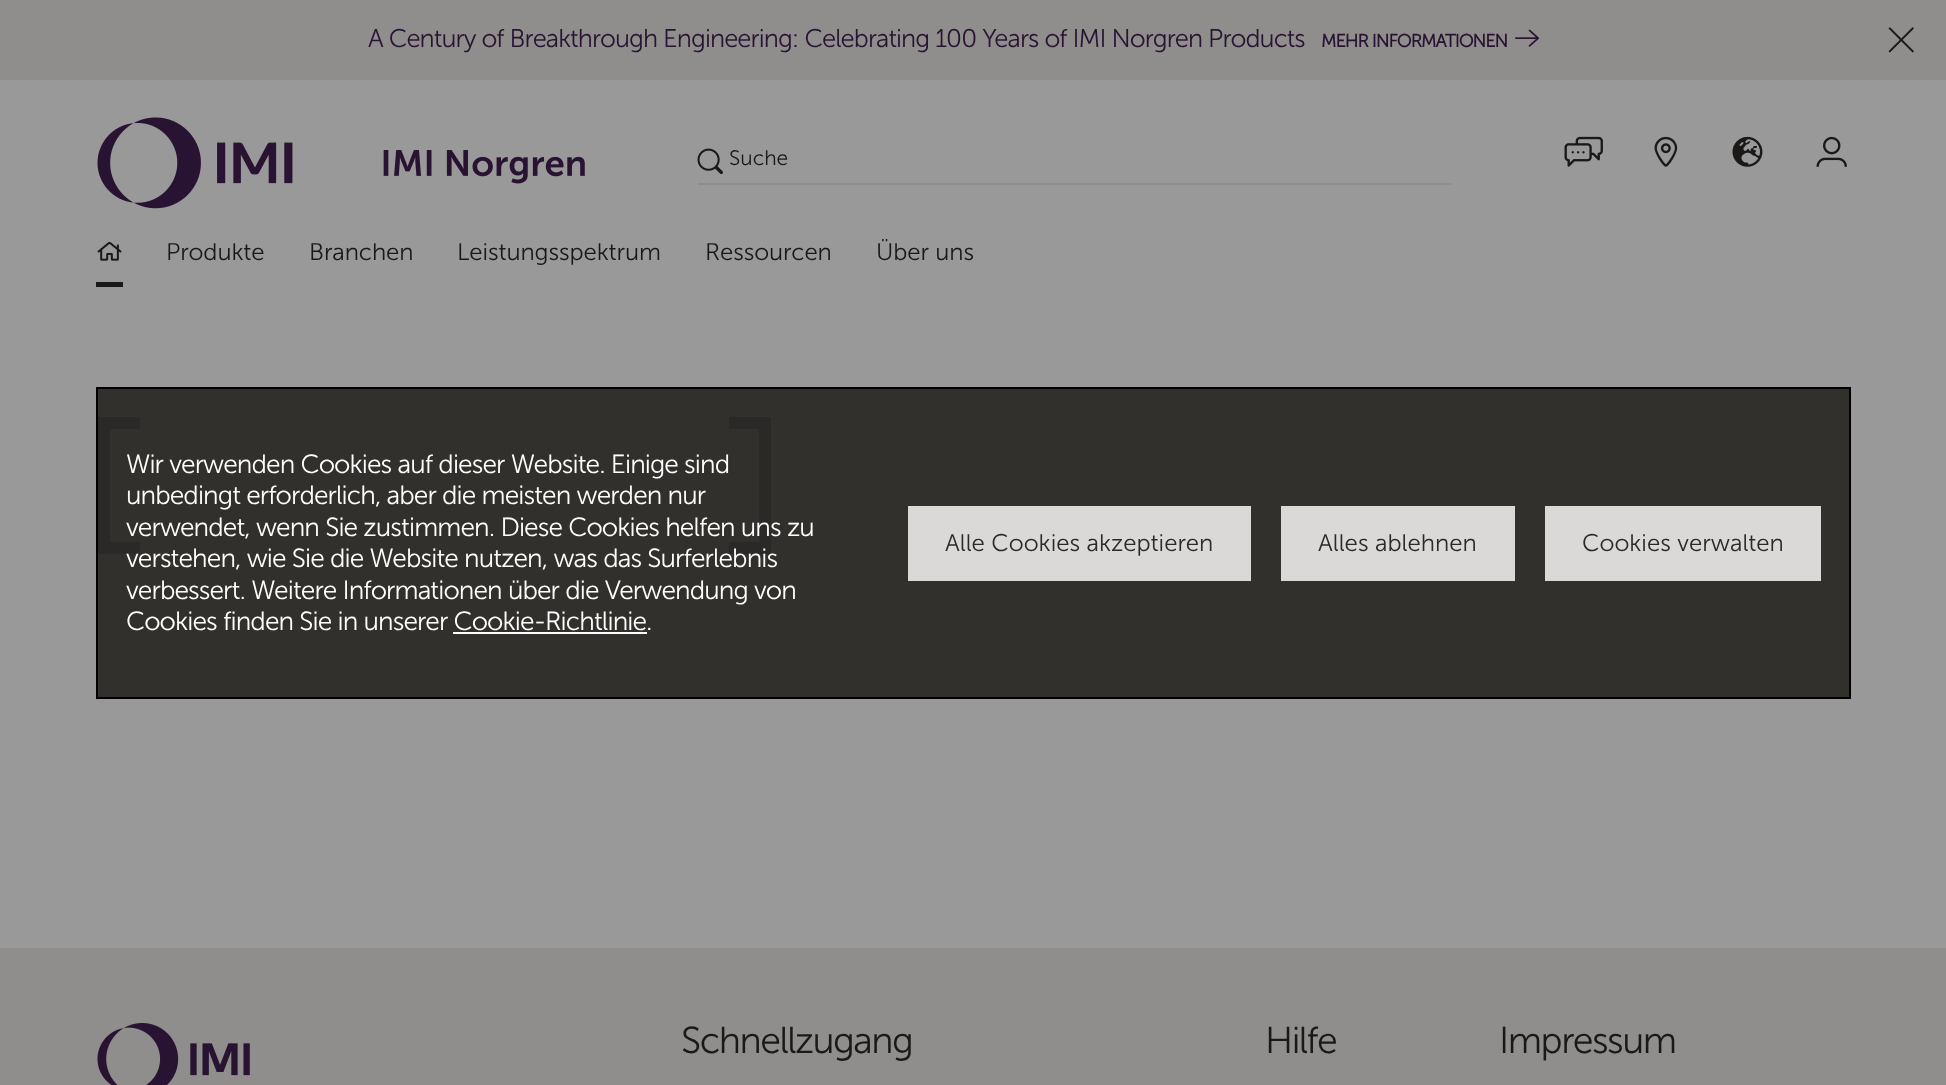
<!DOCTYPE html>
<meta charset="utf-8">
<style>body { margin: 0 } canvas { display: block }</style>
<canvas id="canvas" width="1946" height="1085"></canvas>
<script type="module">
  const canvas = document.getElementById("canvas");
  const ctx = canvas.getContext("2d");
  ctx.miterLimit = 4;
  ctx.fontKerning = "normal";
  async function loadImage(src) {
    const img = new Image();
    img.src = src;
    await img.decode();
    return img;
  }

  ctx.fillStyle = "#999999";
  ctx.fillRect(0, 0, 1946, 1085);
  ctx.fillStyle = "#31302d";
  ctx.fillRect(98, 389, 1751, 308);
  ctx.fillStyle = "#8f8e8c";
  ctx.fillRect(0, 0, 1946, 80);
  ctx.letterSpacing = "-0.9px";
  ctx.font = "300 25.5px Museo Sans";
  ctx.fillStyle = "#291332";
  ctx.fillText("A Century of Breakthrough Engineering: Celebrating 100 Years of IMI Norgren Products", 368, 47);
  ctx.font = "bold 18px Museo Sans";
  ctx.fillText("MEHR INFORMATIONEN", 1321, 47);
  ctx.drawImage(await loadImage("img1.png"), 1515, 29, 24, 18);
  ctx.drawImage(await loadImage("img2.png"), 1888, 27, 26, 26);
  ctx.drawImage(await loadImage("img3.png"), 97, 117, 488, 92);
  ctx.drawImage(await loadImage("img4.png"), 697, 148, 26, 27);
  ctx.letterSpacing = "0px";
  ctx.font = "300 21px Museo Sans";
  ctx.fillStyle = "#1a1917";
  ctx.fillText("Suche", 729, 165);
  ctx.fillStyle = "#8f8e8c";
  ctx.fillRect(698, 183, 753, 2);
  ctx.drawImage(await loadImage("img5.png"), 1564, 136, 39, 31);
  ctx.drawImage(await loadImage("img6.png"), 1654, 136, 24, 31);
  ctx.drawImage(await loadImage("img7.png"), 1732, 136, 31, 31);
  ctx.drawImage(await loadImage("img8.png"), 1816, 136, 31, 31);
  ctx.drawImage(await loadImage("img9.png"), 97, 241, 25, 20);
  ctx.fillStyle = "#1a1917";
  ctx.fillRect(96, 282, 27, 5);
  ctx.letterSpacing = "-0.1px";
  ctx.font = "300 24px Museo Sans";
  ctx.fillText("Produkte", 166, 260);
  ctx.fillText("Branchen", 309, 260);
  ctx.fillText("Leistungsspektrum", 457, 260);
  ctx.fillText("Ressourcen", 705, 260);
  ctx.fillText("Über uns", 876, 260);
  ctx.fillStyle = "#2b2928";
  ctx.fillRect(110, 417, 30, 12);
  ctx.fillRect(110, 542, 30, 12);
  ctx.fillRect(98, 417, 12, 137);
  ctx.fillRect(729, 417, 30, 12);
  ctx.fillRect(759, 417, 12, 125);
  ctx.fillRect(729, 542, 42, 12);
  ctx.fillStyle = "#8f8e8c";
  ctx.fillRect(0, 948, 1946, 137);
  ctx.drawImage(await loadImage("img10.png"), 97, 1023, 153, 62);
  ctx.letterSpacing = "-1.5px";
  ctx.font = "300 37.5px Museo Sans";
  ctx.fillStyle = "#1a1917";
  ctx.fillText("Schnellzugang", 681, 1053);
  ctx.fillText("Hilfe", 1265, 1053);
  ctx.fillText("Impressum", 1499, 1053);
  ctx.strokeStyle = "#000000";
  ctx.lineWidth = 2;
  ctx.strokeRect(97, 388, 1753, 310);
  ctx.letterSpacing = "-0.9px";
  ctx.font = "300 26.25px Museo Sans";
  ctx.fillStyle = "#ffffff";
  ctx.fillText("Wir verwenden Cookies auf dieser Website. Einige sind", 126, 473);
  ctx.fillText("unbedingt erforderlich, aber die meisten werden nur", 126, 504);
  ctx.fillText("verwendet, wenn Sie zustimmen. Diese Cookies helfen uns zu", 126, 536);
  ctx.fillText("verstehen, wie Sie die Website nutzen, was das Surferlebnis", 126, 567);
  ctx.fillText("verbessert. Weitere Informationen über die Verwendung von", 126, 599);
  ctx.fillText("Cookies finden Sie in unserer Cookie-Richtlinie.", 126, 630);
  ctx.fillRect(453, 632, 194, 2);
  ctx.fillStyle = "#dbd9d7";
  ctx.fillRect(908, 506, 343, 75);
  ctx.letterSpacing = "0px";
  ctx.font = "300 24px Museo Sans";
  ctx.fillStyle = "#2b2a27";
  ctx.fillText("Alle Cookies akzeptieren", 945, 551);
  ctx.fillStyle = "#dbd9d7";
  ctx.fillRect(1281, 506, 234, 75);
  ctx.fillStyle = "#2b2a27";
  ctx.fillText("Alles ablehnen", 1318, 551);
  ctx.fillStyle = "#dbd9d7";
  ctx.fillRect(1545, 506, 276, 75);
  ctx.fillStyle = "#2b2a27";
  ctx.fillText("Cookies verwalten", 1582, 551);
</script>
